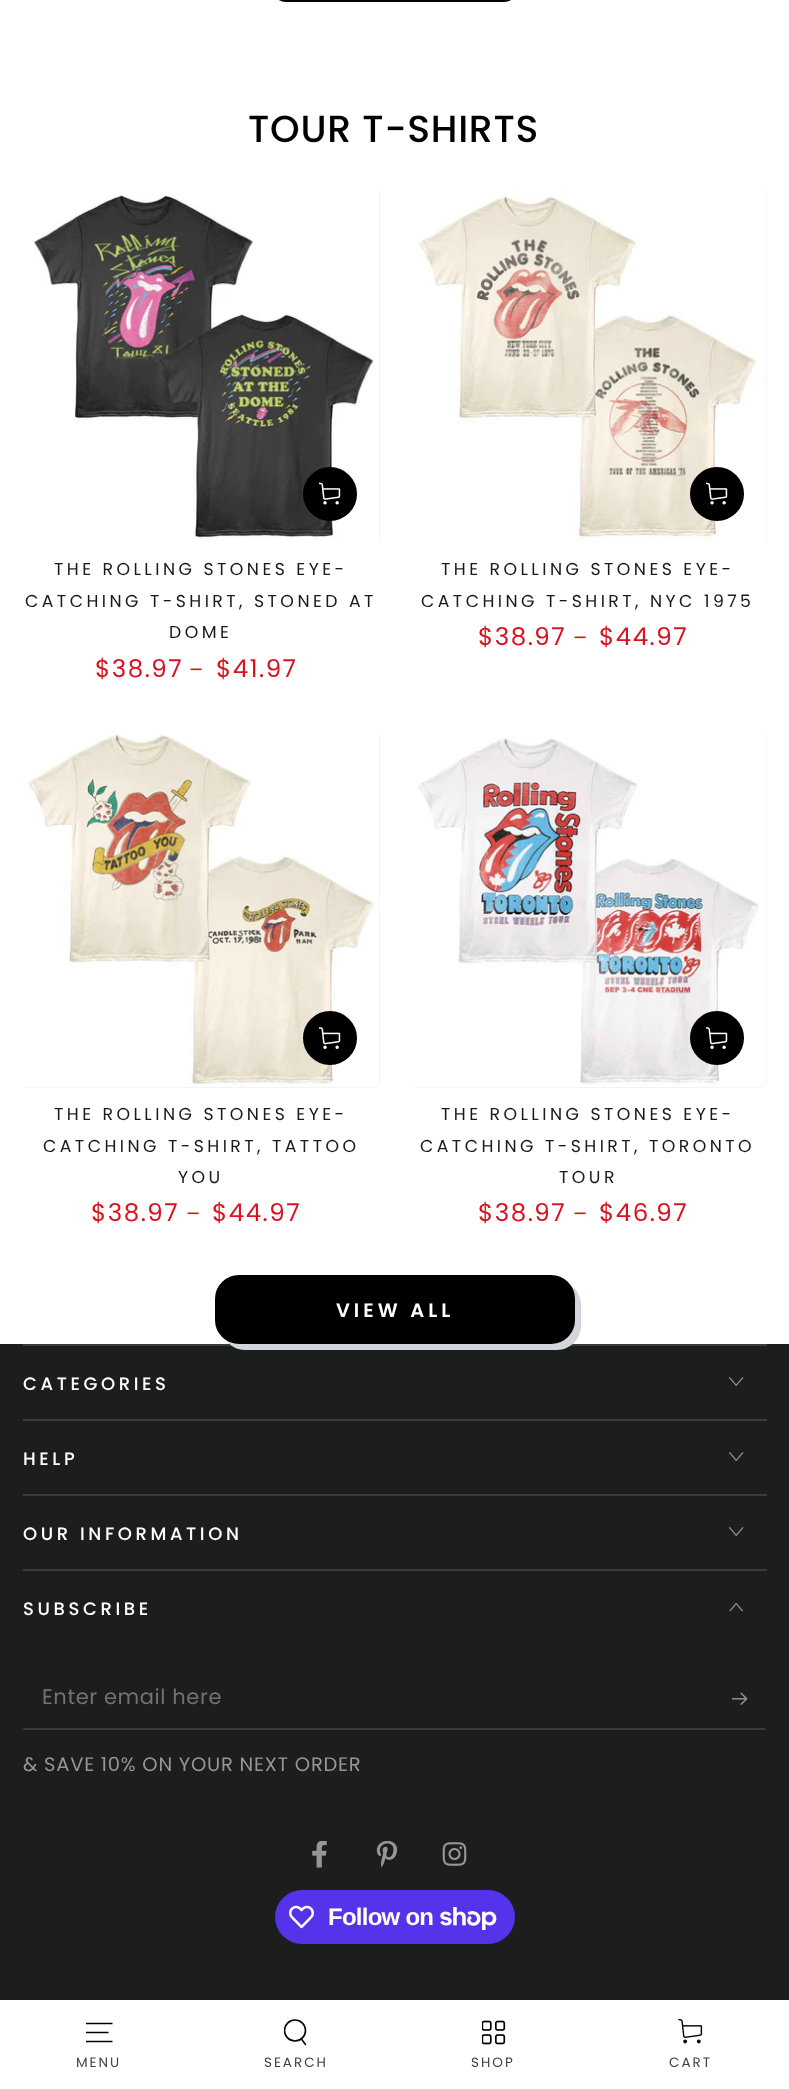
<!DOCTYPE html>
<meta charset="utf-8">
<style>body { margin: 0 } canvas { display: block }</style>
<canvas id="canvas" width="789" height="2089"></canvas>
<script type="module">
  const canvas = document.getElementById("canvas");
  const ctx = canvas.getContext("2d");
  ctx.miterLimit = 4;
  ctx.fontKerning = "normal";
  async function loadImage(src) {
    const img = new Image();
    img.src = src;
    await img.decode();
    return img;
  }

  ctx.fillStyle = "#ffffff";
  ctx.fillRect(0, 0, 789, 2089);
  ctx.beginPath();
  ctx.roundRect(273, -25, 244, 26, 23);
  ctx.strokeStyle = "#030303";
  ctx.lineWidth = 2;
  ctx.stroke();
  ctx.letterSpacing = "0.75px";
  ctx.font = "500 37.75px Poppins";
  ctx.fillStyle = "#000000";
  ctx.fillText("TOUR T-SHIRTS", 248, 142);
  ctx.fillStyle = "#f3f3f3";
  ctx.beginPath();
  ctx.roundRect(23, 186, 357, 357, 6);
  ctx.fill();
  ctx.drawImage(await loadImage("img1.png"), 23, 186, 356, 357);
  ctx.fillStyle = "#000000";
  ctx.beginPath();
  ctx.arc(330, 494, 25.5, 0, Math.PI * 2);
  ctx.fill();
  ctx.strokeStyle = "#000000";
  ctx.lineWidth = 3;
  ctx.stroke();
  ctx.drawImage(await loadImage("img2.png"), 319, 482, 22, 23);
  ctx.letterSpacing = "3.45px";
  ctx.font = "17.25px Poppins";
  ctx.fillStyle = "#1a1b18";
  ctx.fillText("THE ROLLING STONES EYE-", 54, 575);
  ctx.fillText("CATCHING T-SHIRT, STONED AT", 25, 607);
  ctx.fillText("DOME", 169, 638);
  ctx.letterSpacing = "1.5px";
  ctx.font = "24.5px Poppins";
  ctx.fillStyle = "#d9121f";
  ctx.fillText("$38.97", 95, 677);
  ctx.font = "21px Poppins";
  ctx.fillText("–", 189, 677);
  ctx.font = "24.5px Poppins";
  ctx.fillText("$41.97", 216, 677);
  ctx.fillStyle = "#f3f3f3";
  ctx.beginPath();
  ctx.roundRect(410, 186, 357, 357, 6);
  ctx.fill();
  ctx.drawImage(await loadImage("img3.png"), 410, 186, 356, 357);
  ctx.fillStyle = "#000000";
  ctx.beginPath();
  ctx.arc(717, 494, 25.5, 0, Math.PI * 2);
  ctx.fill();
  ctx.stroke();
  ctx.drawImage(await loadImage("img2.png"), 706, 482, 22, 23);
  ctx.letterSpacing = "3.45px";
  ctx.font = "17.25px Poppins";
  ctx.fillStyle = "#1a1b18";
  ctx.fillText("THE ROLLING STONES EYE-", 441, 575);
  ctx.fillText("CATCHING T-SHIRT, NYC 1975", 421, 607);
  ctx.letterSpacing = "1.5px";
  ctx.font = "24.5px Poppins";
  ctx.fillStyle = "#d9121f";
  ctx.fillText("$38.97", 478, 645);
  ctx.font = "21px Poppins";
  ctx.fillText("–", 573, 645);
  ctx.font = "24.5px Poppins";
  ctx.fillText("$44.97", 599, 645);
  ctx.fillStyle = "#f3f3f3";
  ctx.beginPath();
  ctx.roundRect(23, 731, 357, 357, 6);
  ctx.fill();
  ctx.drawImage(await loadImage("img4.png"), 23, 731, 356, 356);
  ctx.fillStyle = "#000000";
  ctx.beginPath();
  ctx.arc(330, 1038, 25.5, 0, Math.PI * 2);
  ctx.fill();
  ctx.stroke();
  ctx.drawImage(await loadImage("img5.png"), 319, 1027, 22, 22);
  ctx.letterSpacing = "3.45px";
  ctx.font = "17.25px Poppins";
  ctx.fillStyle = "#1a1b18";
  ctx.fillText("THE ROLLING STONES EYE-", 54, 1120);
  ctx.fillText("CATCHING T-SHIRT, TATTOO", 43, 1152);
  ctx.fillText("YOU", 178, 1183);
  ctx.letterSpacing = "1.5px";
  ctx.font = "24.5px Poppins";
  ctx.fillStyle = "#d9121f";
  ctx.fillText("$38.97", 91, 1221);
  ctx.font = "21px Poppins";
  ctx.fillText("–", 186, 1221);
  ctx.font = "24.5px Poppins";
  ctx.fillText("$44.97", 212, 1221);
  ctx.fillStyle = "#f3f3f3";
  ctx.beginPath();
  ctx.roundRect(410, 731, 357, 357, 6);
  ctx.fill();
  ctx.drawImage(await loadImage("img6.png"), 410, 731, 356, 356);
  ctx.fillStyle = "#000000";
  ctx.beginPath();
  ctx.arc(717, 1038, 25.5, 0, Math.PI * 2);
  ctx.fill();
  ctx.stroke();
  ctx.drawImage(await loadImage("img5.png"), 706, 1027, 22, 22);
  ctx.letterSpacing = "3.45px";
  ctx.font = "17.25px Poppins";
  ctx.fillStyle = "#1a1b18";
  ctx.fillText("THE ROLLING STONES EYE-", 441, 1120);
  ctx.fillText("CATCHING T-SHIRT, TORONTO", 420, 1152);
  ctx.fillText("TOUR", 559, 1183);
  ctx.letterSpacing = "1.5px";
  ctx.font = "24.5px Poppins";
  ctx.fillStyle = "#d9121f";
  ctx.fillText("$38.97", 478, 1221);
  ctx.font = "21px Poppins";
  ctx.fillText("–", 573, 1221);
  ctx.font = "24.5px Poppins";
  ctx.fillText("$46.97", 599, 1221);
  ctx.fillStyle = "#1c1d1d";
  ctx.fillRect(0, 1344, 789, 656);
  ctx.fillStyle = "#3b3b3b";
  ctx.fillRect(23, 1344, 744, 2);
  ctx.fillStyle = "#d2d5d9";
  ctx.beginPath();
  ctx.moveTo(226, 1340);
  ctx.bezierCurveTo(230, 1346, 237, 1350, 245, 1350);
  ctx.lineTo(557, 1350);
  ctx.bezierCurveTo(570, 1350, 581, 1339, 581, 1326);
  ctx.lineTo(581, 1305);
  ctx.bezierCurveTo(581, 1296, 577, 1289, 570, 1285);
  ctx.bezierCurveTo(573, 1289, 574, 1294, 574, 1299);
  ctx.lineTo(574, 1320);
  ctx.bezierCurveTo(574, 1333, 564, 1344, 550, 1344);
  ctx.lineTo(238, 1344);
  ctx.bezierCurveTo(234, 1344, 229, 1343, 226, 1340);
  ctx.closePath();
  ctx.fill();
  ctx.fillStyle = "#000000";
  ctx.beginPath();
  ctx.roundRect(216.5, 1276.5, 357, 66, 22.5);
  ctx.fill();
  ctx.stroke();
  ctx.letterSpacing = "4px";
  ctx.font = "600 19.5px Poppins";
  ctx.fillStyle = "#ffffff";
  ctx.fillText("VIEW ALL", 336, 1317);
  ctx.fillStyle = "#3b3b3b";
  ctx.fillRect(23, 1419, 744, 2);
  ctx.letterSpacing = "3.6px";
  ctx.font = "500 18px Poppins";
  ctx.fillStyle = "#ffffff";
  ctx.fillText("CATEGORIES", 23, 1390);
  ctx.drawImage(await loadImage("img7.png"), 729, 1377, 15, 9);
  ctx.fillStyle = "#3b3b3b";
  ctx.fillRect(23, 1494, 744, 2);
  ctx.fillStyle = "#ffffff";
  ctx.fillText("HELP", 23, 1465);
  ctx.drawImage(await loadImage("img7.png"), 729, 1452, 15, 9);
  ctx.fillStyle = "#3b3b3b";
  ctx.fillRect(23, 1569, 744, 2);
  ctx.fillStyle = "#ffffff";
  ctx.fillText("OUR INFORMATION", 23, 1540);
  ctx.drawImage(await loadImage("img7.png"), 729, 1527, 15, 9);
  ctx.fillText("SUBSCRIBE", 23, 1615);
  ctx.drawImage(await loadImage("img8.png"), 729, 1603, 15, 8);
  ctx.fillStyle = "#3b3b3b";
  ctx.beginPath();
  ctx.moveTo(766, 1730);
  ctx.lineTo(22, 1730);
  ctx.lineTo(24, 1728);
  ctx.lineTo(765, 1728);
  ctx.closePath();
  ctx.fill();
  ctx.letterSpacing = "0.6px";
  ctx.font = "21px Poppins";
  ctx.fillStyle = "#717272";
  ctx.fillText("Enter email here", 42, 1704);
  ctx.drawImage(await loadImage("img9.png"), 732, 1692, 16, 13);
  ctx.letterSpacing = "0.75px";
  ctx.font = "19.5px Poppins";
  ctx.fillStyle = "#969696";
  ctx.fillText("& SAVE 10% ON YOUR NEXT ORDER", 23, 1771);
  ctx.drawImage(await loadImage("img10.png"), 312, 1841, 15, 27);
  ctx.drawImage(await loadImage("img11.png"), 376, 1841, 22, 27);
  ctx.drawImage(await loadImage("img12.png"), 442, 1842, 25, 24);
  ctx.fillStyle = "#5433eb";
  ctx.beginPath();
  ctx.roundRect(275, 1890, 240, 54, 27);
  ctx.fill();
  ctx.drawImage(await loadImage("img13.png"), 289, 1905, 25, 24);
  ctx.letterSpacing = "-0.75px";
  ctx.font = "bold 24px Liberation Sans";
  ctx.fillStyle = "#ffffff";
  ctx.fillText("Follow on", 328, 1925);
  ctx.drawImage(await loadImage("img14.png"), 440, 1907, 57, 23);
  ctx.save();
  ctx.beginPath();
  ctx.rect(86, 2019, 27, 27);
  ctx.clip();
  ctx.beginPath();
  ctx.moveTo(85.5, 2041.5);
  ctx.lineTo(112.5, 2041.5);
  ctx.moveTo(85.5, 2032.5);
  ctx.lineTo(108.5, 2032.5);
  ctx.moveTo(85.5, 2023.5);
  ctx.lineTo(112.5, 2023.5);
  ctx.lineWidth = 1.7;
  ctx.stroke();
  ctx.restore();
  ctx.letterSpacing = "2px";
  ctx.font = "13.5px Poppins";
  ctx.fillStyle = "#404040";
  ctx.fillText("MENU", 76, 2067);
  ctx.save();
  ctx.beginPath();
  ctx.rect(284, 2019, 24, 27);
  ctx.clip();
  ctx.beginPath();
  ctx.arc(295, 2030.5, 10.5, 0, Math.PI * 2);
  ctx.lineWidth = 1.6;
  ctx.stroke();
  ctx.restore();
  ctx.beginPath();
  ctx.moveTo(301, 2038.5);
  ctx.lineTo(305.5, 2044.5);
  ctx.lineWidth = 1.6;
  ctx.lineCap = "round";
  ctx.stroke();
  ctx.fillText("SEARCH", 264, 2067);
  ctx.drawImage(await loadImage("img15.png"), 482, 2020, 24, 25);
  ctx.fillText("SHOP", 471, 2067);
  ctx.drawImage(await loadImage("img16.png"), 678, 2018, 25, 26);
  ctx.fillText("CART", 669, 2067);
</script>
